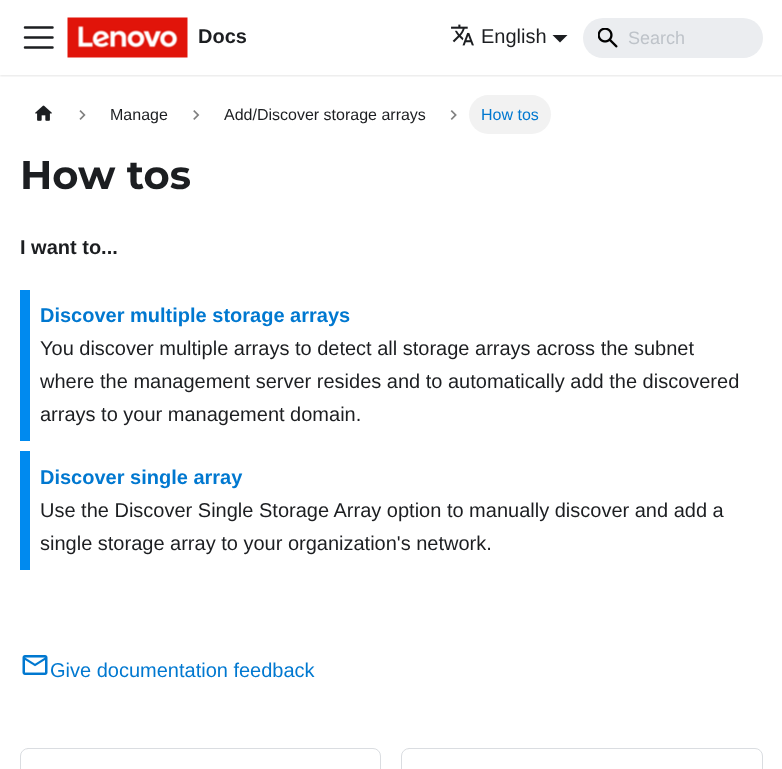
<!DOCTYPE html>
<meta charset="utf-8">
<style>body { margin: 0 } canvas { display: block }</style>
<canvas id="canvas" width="782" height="769"></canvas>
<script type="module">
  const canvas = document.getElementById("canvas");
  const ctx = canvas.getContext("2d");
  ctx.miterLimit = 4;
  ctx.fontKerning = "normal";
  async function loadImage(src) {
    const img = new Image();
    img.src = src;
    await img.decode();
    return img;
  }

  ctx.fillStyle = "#ffffff";
  ctx.fillRect(0, 0, 782, 769);
  ctx.save();
  ctx.beginPath();
  ctx.rect(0, 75, 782, 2);
  ctx.clip();
  ctx.fillStyle = "rgba(0, 0, 0, 0.1)";
  ctx.filter = "blur(1px)";
  ctx.beginPath();
  ctx.rect(0, 1, 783, 75);
  ctx.fill();
  ctx.filter = "none";
  ctx.restore();
  ctx.beginPath();
  ctx.moveTo(25, 27.5);
  ctx.lineTo(52.5, 27.5);
  ctx.moveTo(25, 37.5);
  ctx.lineTo(52.5, 37.5);
  ctx.moveTo(25, 47.5);
  ctx.lineTo(52.5, 47.5);
  ctx.strokeStyle = "#1c1e21";
  ctx.lineWidth = 2.5;
  ctx.lineCap = "round";
  ctx.stroke();
  ctx.drawImage(await loadImage("img1.png"), 67, 17, 121, 41);
  ctx.font = "bold 20px Liberation Sans";
  ctx.fillStyle = "#1c1e21";
  ctx.fillText("Docs", 198, 43);
  ctx.drawImage(await loadImage("img2.png"), 451, 24, 23, 22);
  ctx.font = "20px Liberation Sans";
  ctx.fillText("English", 481, 43);
  ctx.beginPath();
  ctx.moveTo(552.5, 35);
  ctx.lineTo(567.5, 35);
  ctx.lineTo(560, 42.5);
  ctx.closePath();
  ctx.fill();
  ctx.fillStyle = "#ebedf0";
  ctx.beginPath();
  ctx.roundRect(583, 18, 180, 40, 20);
  ctx.fill();
  ctx.drawImage(await loadImage("img3.png"), 598, 28, 20, 20);
  ctx.font = "18px Liberation Sans";
  ctx.fillStyle = "#bec3c9";
  ctx.fillText("Search", 628, 44);
  ctx.drawImage(await loadImage("img4.png"), 35, 105, 17, 16);
  ctx.drawImage(await loadImage("img5.png"), 79, 110, 7, 10);
  ctx.font = "16px Liberation Sans";
  ctx.fillStyle = "#1c1e21";
  ctx.fillText("Manage", 110, 120);
  ctx.drawImage(await loadImage("img6.png"), 193, 110, 7, 10);
  ctx.fillText("Add/Discover storage arrays", 224, 120);
  ctx.drawImage(await loadImage("img7.png"), 450, 110, 7, 10);
  ctx.fillStyle = "#f2f2f2";
  ctx.beginPath();
  ctx.roundRect(469, 95, 82, 39, 19.5);
  ctx.fill();
  ctx.fillStyle = "#0078d0";
  ctx.fillText("How tos", 481, 120);
  ctx.font = "bold 40px Montserrat";
  ctx.fillStyle = "#1c1e21";
  ctx.fillText("How tos", 20, 189);
  ctx.font = "bold 20px Liberation Sans";
  ctx.fillText("I want to...", 20, 254);
  ctx.fillStyle = "#008aef";
  ctx.fillRect(20, 290, 10, 151);
  ctx.fillStyle = "#0078d0";
  ctx.fillText("Discover multiple storage arrays", 40, 322);
  ctx.font = "20px Liberation Sans";
  ctx.fillStyle = "#1c1e21";
  ctx.fillText("You discover multiple arrays to detect all storage arrays across the subnet", 40, 355);
  ctx.fillText("where the management server resides and to automatically add the discovered", 40, 388);
  ctx.fillText("arrays to your management domain.", 40, 421);
  ctx.fillStyle = "#008aef";
  ctx.fillRect(20, 451, 10, 119);
  ctx.font = "bold 20px Liberation Sans";
  ctx.fillStyle = "#0078d0";
  ctx.fillText("Discover single array", 40, 484);
  ctx.font = "20px Liberation Sans";
  ctx.fillStyle = "#1c1e21";
  ctx.fillText("Use the Discover Single Storage Array option to manually discover and add a", 40, 517);
  ctx.fillText("single storage array to your organization's network.", 40, 550);
  ctx.drawImage(await loadImage("img8.png"), 22, 655, 26, 20);
  ctx.fillStyle = "#0078d0";
  ctx.fillText("Give documentation feedback", 50, 677);
  ctx.beginPath();
  ctx.roundRect(20.5, 748.5, 360, 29, 7.5);
  ctx.strokeStyle = "#dadde1";
  ctx.lineWidth = 1;
  ctx.stroke();
  ctx.beginPath();
  ctx.roundRect(401.5, 748.5, 361, 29, 7.5);
  ctx.stroke();
</script>
